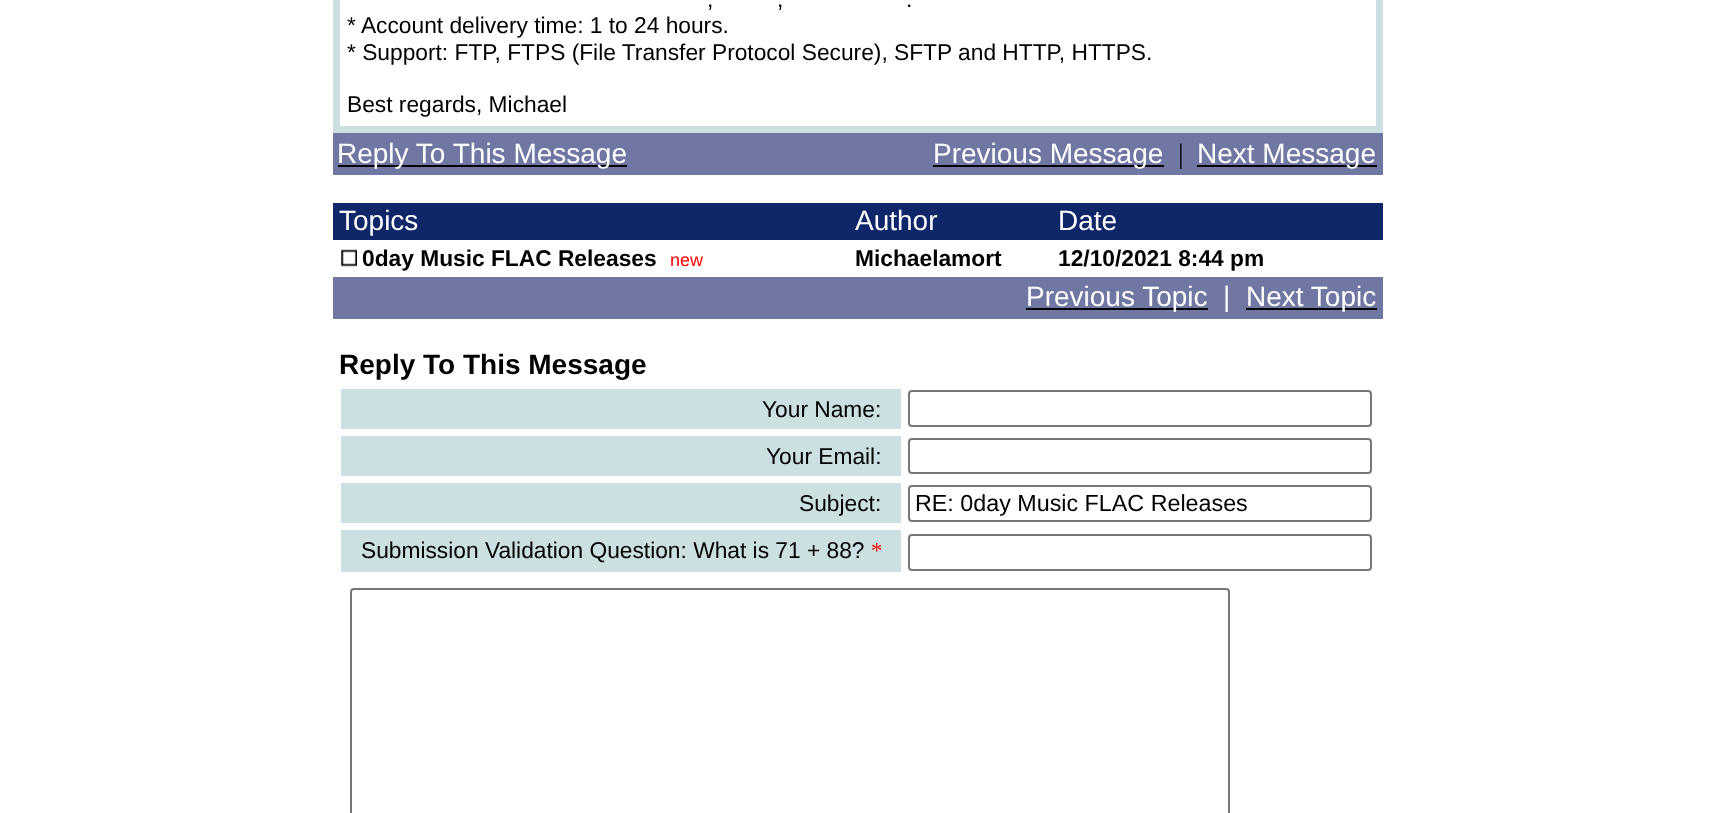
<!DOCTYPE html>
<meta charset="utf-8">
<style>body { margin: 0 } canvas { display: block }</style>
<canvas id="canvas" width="1712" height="813"></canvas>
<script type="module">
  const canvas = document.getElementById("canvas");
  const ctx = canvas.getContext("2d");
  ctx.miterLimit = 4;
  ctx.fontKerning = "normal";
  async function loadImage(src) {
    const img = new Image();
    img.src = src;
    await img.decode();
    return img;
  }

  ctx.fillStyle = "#ffffff";
  ctx.fillRect(0, 0, 1712, 813);
  ctx.fillStyle = "#cce0e2";
  ctx.fillRect(333, 0, 1050, 133);
  ctx.fillStyle = "#ffffff";
  ctx.fillRect(340, 0, 1036, 126);
  ctx.font = "22.75px Liberation Sans";
  ctx.fillStyle = "#000000";
  ctx.fillText(",", 707, 7);
  ctx.fillText(",", 777, 7);
  ctx.fillText(".", 906, 7);
  ctx.fillText("* Account delivery time: 1 to 24 hours.", 347, 33);
  ctx.fillText("* Support: FTP, FTPS (File Transfer Protocol Secure), SFTP and HTTP, HTTPS.", 347, 60);
  ctx.fillText("Best regards, Michael", 347, 112);
  ctx.fillStyle = "#7177a3";
  ctx.fillRect(333, 133, 1050, 42);
  ctx.fillStyle = "#000000";
  ctx.fillRect(338, 165, 289, 2);
  ctx.font = "28px Liberation Sans";
  ctx.fillStyle = "#ffffff";
  ctx.fillText("Reply To This Message", 337, 163);
  ctx.fillStyle = "#000000";
  ctx.fillRect(933, 165, 231, 2);
  ctx.fillStyle = "#ffffff";
  ctx.fillText("Previous Message", 933, 163);
  ctx.font = "28px Liberation Serif";
  ctx.fillStyle = "#000000";
  ctx.fillText("|", 1178, 163);
  ctx.fillRect(1197, 165, 180, 2);
  ctx.font = "28px Liberation Sans";
  ctx.fillStyle = "#ffffff";
  ctx.fillText("Next Message", 1197, 163);
  ctx.fillStyle = "#0f2668";
  ctx.fillRect(333, 203, 1050, 37);
  ctx.fillStyle = "#ffffff";
  ctx.fillText("Topics", 339, 230);
  ctx.fillText("Author", 855, 230);
  ctx.fillText("Date", 1058, 230);
  ctx.drawImage(await loadImage("img1.png"), 341, 249, 16, 18);
  ctx.font = "bold 22.75px Liberation Sans";
  ctx.fillStyle = "#000000";
  ctx.fillText("0day Music FLAC Releases", 362, 266);
  ctx.font = "18px Liberation Sans";
  ctx.fillStyle = "#ff0000";
  ctx.fillText("new", 670, 266);
  ctx.font = "bold 22.75px Liberation Sans";
  ctx.fillStyle = "#000000";
  ctx.fillText("Michaelamort", 855, 266);
  ctx.fillText("12/10/2021 8:44 pm", 1058, 266);
  ctx.fillStyle = "#7177a3";
  ctx.fillRect(333, 277, 1050, 42);
  ctx.fillStyle = "#000000";
  ctx.fillRect(1026, 308, 182, 2);
  ctx.font = "28px Liberation Sans";
  ctx.fillStyle = "#ffffff";
  ctx.fillText("Previous Topic", 1026, 306);
  ctx.fillText("|", 1223, 306);
  ctx.fillStyle = "#000000";
  ctx.fillRect(1246, 308, 131, 2);
  ctx.fillStyle = "#ffffff";
  ctx.fillText("Next Topic", 1246, 306);
  ctx.font = "bold 28px Liberation Sans";
  ctx.fillStyle = "#000000";
  ctx.fillText("Reply To This Message", 339, 374);
  ctx.fillStyle = "#cce0e2";
  ctx.fillRect(341, 389, 560, 40);
  ctx.font = "22.75px Liberation Sans";
  ctx.fillStyle = "#000000";
  ctx.fillText("Your Name:", 762, 417);
  ctx.beginPath();
  ctx.roundRect(909, 391, 462, 35, 3);
  ctx.strokeStyle = "#767676";
  ctx.lineWidth = 2;
  ctx.stroke();
  ctx.fillStyle = "#cce0e2";
  ctx.fillRect(341, 436, 560, 40);
  ctx.fillStyle = "#000000";
  ctx.fillText("Your Email:", 766, 464);
  ctx.beginPath();
  ctx.roundRect(909, 439, 462, 34, 3);
  ctx.stroke();
  ctx.fillStyle = "#cce0e2";
  ctx.fillRect(341, 483, 560, 40);
  ctx.fillStyle = "#000000";
  ctx.fillText("Subject:", 799, 511);
  ctx.beginPath();
  ctx.roundRect(909, 486, 462, 35, 3);
  ctx.stroke();
  ctx.font = "23.3px Liberation Sans";
  ctx.fillText("RE: 0day Music FLAC Releases", 915, 511);
  ctx.fillStyle = "#cce0e2";
  ctx.fillRect(341, 530, 560, 42);
  ctx.font = "22.75px Liberation Sans";
  ctx.fillStyle = "#000000";
  ctx.fillText("Submission Validation Question: What is 71 + 88?", 361, 558);
  ctx.font = "22.75px Liberation Serif";
  ctx.fillStyle = "#ff0000";
  ctx.fillText("*", 871, 558);
  ctx.beginPath();
  ctx.roundRect(909, 535, 462, 35, 3);
  ctx.stroke();
  ctx.beginPath();
  ctx.roundRect(351, 589, 878, 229, 3);
  ctx.stroke();
</script>
